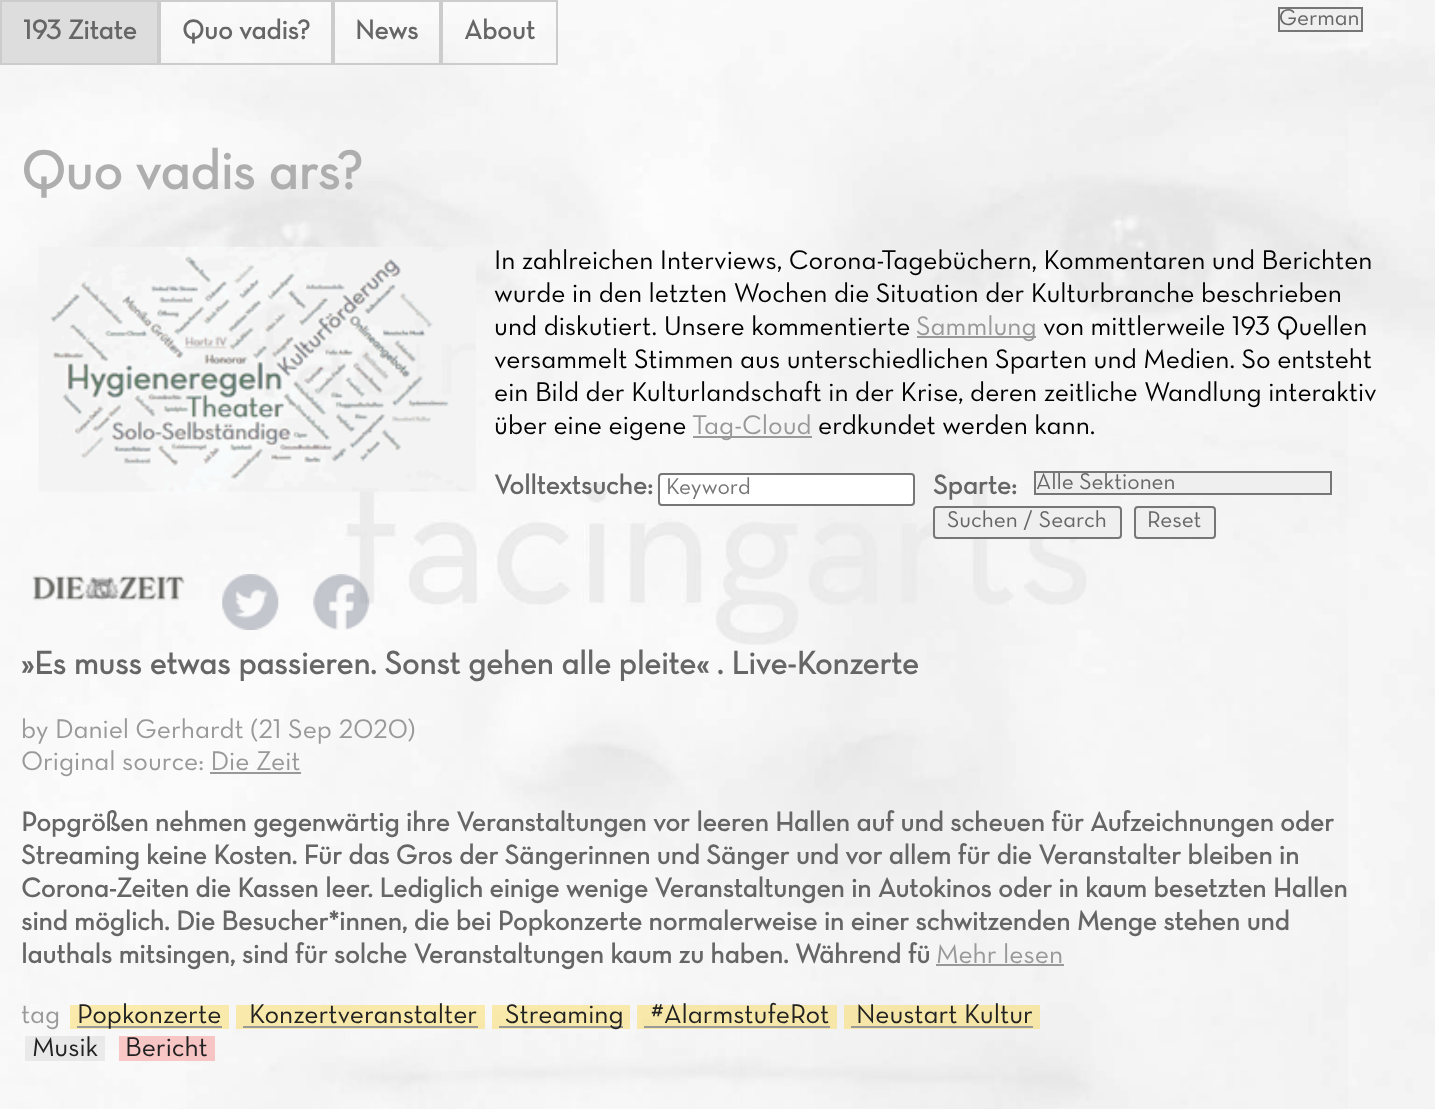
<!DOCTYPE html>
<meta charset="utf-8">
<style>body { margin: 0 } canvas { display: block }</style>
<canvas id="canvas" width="1435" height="1109"></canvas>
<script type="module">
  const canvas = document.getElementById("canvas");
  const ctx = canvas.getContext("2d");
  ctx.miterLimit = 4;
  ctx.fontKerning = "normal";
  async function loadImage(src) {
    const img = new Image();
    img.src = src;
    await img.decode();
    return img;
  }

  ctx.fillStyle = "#ffffff";
  ctx.fillRect(0, 0, 1435, 1109);
  ctx.drawImage(await loadImage("img1.png"), 0, 0, 1435, 1109);
  ctx.drawImage(await loadImage("img2.png"), 0, 0, 1348, 1109);
  ctx.fillStyle = "#dddddd";
  ctx.beginPath();
  ctx.rect(1, 1, 157, 63);
  ctx.fill();
  ctx.strokeStyle = "#cccccc";
  ctx.lineWidth = 2;
  ctx.stroke();
  ctx.font = "bold 27.45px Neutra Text";
  ctx.fillStyle = "#666666";
  ctx.fillText("193 Zitate", 23, 39);
  ctx.strokeRect(160, 1, 172, 63);
  ctx.fillText("Quo vadis?", 182, 39);
  ctx.strokeRect(334, 1, 106, 63);
  ctx.fillText("News", 355, 39);
  ctx.strokeRect(442, 1, 115, 63);
  ctx.fillText("About", 464, 39);
  ctx.fillStyle = "#efefef";
  ctx.beginPath();
  ctx.rect(1279, 8, 83, 23);
  ctx.fill();
  ctx.strokeStyle = "#767676";
  ctx.stroke();
  ctx.font = "23.25px Neutra Text";
  ctx.fillStyle = "#666666";
  ctx.fillText("German", 1279, 25);
  ctx.font = "bold 55px Neutra Text";
  ctx.fillStyle = "#aeaeae";
  ctx.fillText("Quo vadis ars?", 21, 189);
  ctx.drawImage(await loadImage("img3.png"), 38, 246, 438, 246);
  ctx.font = "27.45px Neutra Text";
  ctx.fillStyle = "#000000";
  ctx.fillText("In zahlreichen Interviews, Corona-Tagebüchern, Kommentaren und Berichten", 494, 269);
  ctx.fillText("wurde in den letzten Wochen die Situation der Kulturbranche beschrieben", 494, 302);
  ctx.fillText("und diskutiert. Unsere kommentierte", 494, 335);
  ctx.fillStyle = "#999999";
  ctx.fillRect(917, 336, 119, 2);
  ctx.fillText("Sammlung", 916, 335);
  ctx.fillStyle = "#000000";
  ctx.fillText("von mittlerweile 193 Quellen", 1043, 335);
  ctx.fillText("versammelt Stimmen aus unterschiedlichen Sparten und Medien. So entsteht", 494, 368);
  ctx.fillText("ein Bild der Kulturlandschaft in der Krise, deren zeitliche Wandlung interaktiv", 494, 401);
  ctx.fillText("über eine eigene", 494, 434);
  ctx.fillStyle = "#999999";
  ctx.fillRect(693, 436, 119, 2);
  ctx.fillText("Tag-Cloud", 692, 434);
  ctx.fillStyle = "#000000";
  ctx.fillText("erdkundet werden kann.", 818, 434);
  ctx.font = "bold 27.45px Neutra Text";
  ctx.fillStyle = "#666666";
  ctx.fillText("Volltextsuche:", 494, 494);
  ctx.fillStyle = "#ffffff";
  ctx.beginPath();
  ctx.roundRect(659, 474, 255, 31, 3);
  ctx.fill();
  ctx.stroke();
  ctx.font = "23.25px Neutra Text";
  ctx.fillStyle = "#757575";
  ctx.fillText("Keyword", 666, 494);
  ctx.font = "bold 27.45px Neutra Text";
  ctx.fillStyle = "#666666";
  ctx.fillText("Sparte:", 933, 494);
  ctx.fillStyle = "#efefef";
  ctx.beginPath();
  ctx.rect(1035, 472, 296, 22);
  ctx.fill();
  ctx.stroke();
  ctx.save();
  ctx.beginPath();
  ctx.rect(1036, 473, 294, 21);
  ctx.clip();
  ctx.font = "23.25px Neutra Text";
  ctx.fillStyle = "#666666";
  ctx.fillText("Alle Sektionen", 1036, 489);
  ctx.restore();
  ctx.beginPath();
  ctx.roundRect(934, 507, 187, 31, 3);
  ctx.fill();
  ctx.stroke();
  ctx.font = "23.25px Neutra Text";
  ctx.fillStyle = "#666666";
  ctx.fillText("Suchen / Search", 947, 527);
  ctx.fillStyle = "#efefef";
  ctx.beginPath();
  ctx.roundRect(1135, 507, 80, 31, 3);
  ctx.fill();
  ctx.stroke();
  ctx.fillStyle = "#666666";
  ctx.fillText("Reset", 1147, 527);
  ctx.drawImage(await loadImage("img4.png"), 32, 575, 153, 26);
  ctx.drawImage(await loadImage("img5.png"), 222, 574, 57, 56);
  ctx.drawImage(await loadImage("img6.png"), 313, 574, 57, 56);
  ctx.font = "bold 32.7px Neutra Text";
  ctx.fillText("»Es muss etwas passieren. Sonst gehen alle pleite« . Live-Konzerte", 21, 674);
  ctx.font = "27.45px Neutra Text";
  ctx.fillStyle = "#999999";
  ctx.fillText("by Daniel Gerhardt (21 Sep 2020)", 21, 738);
  ctx.fillText("Original source: Die Zeit", 21, 770);
  ctx.fillRect(210, 772, 91, 2);
  ctx.font = "bold 27.45px Neutra Text";
  ctx.fillStyle = "#666666";
  ctx.fillText("Popgrößen nehmen gegenwärtig ihre Veranstaltungen vor leeren Hallen auf und scheuen für Aufzeichnungen oder", 21, 831);
  ctx.fillText("Streaming keine Kosten. Für das Gros der Sängerinnen und Sänger und vor allem für die Veranstalter bleiben in", 21, 864);
  ctx.fillText("Corona-Zeiten die Kassen leer. Lediglich einige wenige Veranstaltungen in Autokinos oder in kaum besetzten Hallen", 21, 897);
  ctx.fillText("sind möglich. Die Besucher*innen, die bei Popkonzerte normalerweise in einer schwitzenden Menge stehen und", 21, 930);
  ctx.fillText("lauthals mitsingen, sind für solche Veranstaltungen kaum zu haben. Während fü", 21, 963);
  ctx.font = "27.45px Neutra Text";
  ctx.fillStyle = "#999999";
  ctx.fillText("Mehr lesen", 936, 963);
  ctx.fillRect(936, 964, 128, 2);
  ctx.fillText("tag", 21, 1023);
  ctx.fillStyle = "rgba(255, 204, 0, 0.3)";
  ctx.fillRect(70, 1005, 159, 24);
  ctx.fillStyle = "#999999";
  ctx.fillRect(77, 1026, 145, 2);
  ctx.fillStyle = "#222222";
  ctx.fillText("Popkonzerte", 77, 1023);
  ctx.fillStyle = "rgba(255, 204, 0, 0.3)";
  ctx.fillRect(236, 1005, 249, 24);
  ctx.fillStyle = "#222222";
  ctx.fillText("Konzertveranstalter", 249, 1023);
  ctx.fillStyle = "#999999";
  ctx.fillRect(243, 1026, 235, 2);
  ctx.fillStyle = "rgba(255, 204, 0, 0.3)";
  ctx.fillRect(492, 1005, 138, 24);
  ctx.fillStyle = "#999999";
  ctx.fillRect(499, 1026, 124, 2);
  ctx.fillStyle = "#222222";
  ctx.fillText("Streaming", 505, 1023);
  ctx.fillStyle = "rgba(255, 204, 0, 0.3)";
  ctx.fillRect(637, 1005, 200, 24);
  ctx.fillStyle = "#222222";
  ctx.fillText("#AlarmstufeRot", 651, 1023);
  ctx.fillStyle = "#999999";
  ctx.fillRect(644, 1026, 186, 2);
  ctx.fillStyle = "rgba(255, 204, 0, 0.3)";
  ctx.fillRect(844, 1005, 196, 24);
  ctx.fillStyle = "#222222";
  ctx.fillText("Neustart Kultur", 856, 1023);
  ctx.fillStyle = "#999999";
  ctx.fillRect(851, 1026, 182, 2);
  ctx.fillStyle = "rgba(200, 200, 200, 0.3)";
  ctx.fillRect(25, 1036, 80, 25);
  ctx.fillStyle = "#222222";
  ctx.fillText("Musik", 32, 1056);
  ctx.fillStyle = "rgba(255, 0, 0, 0.2)";
  ctx.fillRect(119, 1036, 96, 25);
  ctx.fillStyle = "#222222";
  ctx.fillText("Bericht", 125, 1056);
</script>
